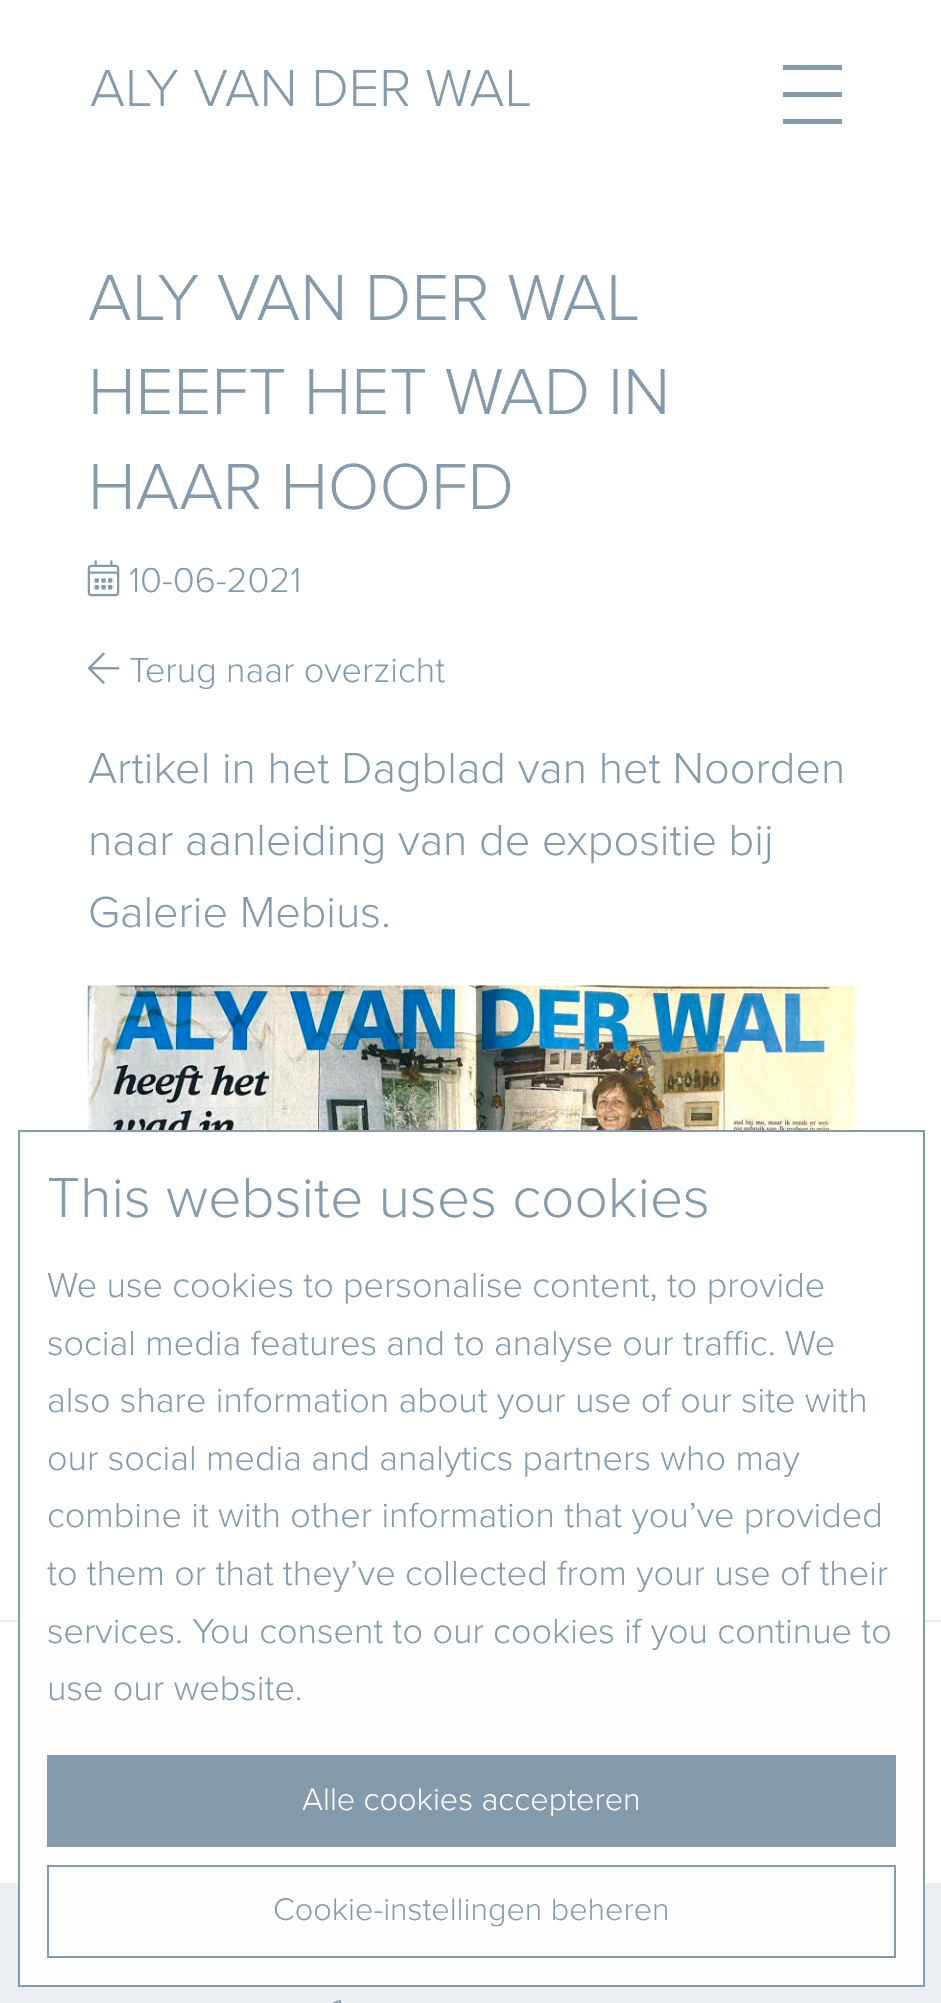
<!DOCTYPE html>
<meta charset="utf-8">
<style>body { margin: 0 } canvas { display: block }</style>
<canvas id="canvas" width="941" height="2003"></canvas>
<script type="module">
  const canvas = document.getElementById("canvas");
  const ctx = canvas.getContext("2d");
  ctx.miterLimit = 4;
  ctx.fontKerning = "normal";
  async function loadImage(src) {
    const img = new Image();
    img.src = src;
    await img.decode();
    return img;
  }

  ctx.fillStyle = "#ffffff";
  ctx.fillRect(0, 0, 941, 2003);
  ctx.font = "300 54px Proxima Nova";
  ctx.fillStyle = "#859aaa";
  ctx.fillText("ALY VAN DER WAL", 90, 106);
  ctx.fillRect(783, 65, 59, 5);
  ctx.fillRect(783, 92, 59, 5);
  ctx.fillRect(783, 119, 59, 5);
  ctx.font = "300 67.5px Proxima Nova";
  ctx.fillText("ALY VAN DER WAL", 88, 320);
  ctx.fillText("HEEFT HET WAD IN", 88, 414);
  ctx.fillText("HAAR HOOFD", 88, 509);
  ctx.drawImage(await loadImage("img1.png"), 87, 560, 33, 37);
  ctx.font = "300 36px Proxima Nova";
  ctx.fillText("10-06-2021", 129, 592);
  ctx.drawImage(await loadImage("img2.png"), 87, 652, 33, 32);
  ctx.fillText("Terug naar overzicht", 129, 682);
  ctx.font = "300 45px Proxima Nova";
  ctx.fillText("Artikel in het Dagblad van het Noorden", 88, 783);
  ctx.fillText("naar aanleiding van de expositie bij", 88, 855);
  ctx.fillText("Galerie Mebius.", 88, 927);
  ctx.drawImage(await loadImage("img3.png"), 87, 985, 768, 145);
  ctx.fillStyle = "#eaeef3";
  ctx.fillRect(0, 1620, 941, 2);
  ctx.fillRect(0, 1883, 941, 120);
  ctx.fillStyle = "#fefefe";
  ctx.fillRect(20, 1620, 903, 365);
  ctx.strokeStyle = "#859aaa";
  ctx.lineWidth = 2;
  ctx.strokeRect(19, 1131, 905, 855);
  ctx.font = "300 58.5px Proxima Nova";
  ctx.fillStyle = "#859aaa";
  ctx.fillText("This website uses cookies", 47, 1217);
  ctx.font = "300 36px Proxima Nova";
  ctx.fillText("We use cookies to personalise content, to provide", 47, 1297);
  ctx.fillText("social media features and to analyse our traffic. We", 47, 1355);
  ctx.fillText("also share information about your use of our site with", 47, 1412);
  ctx.fillText("our social media and analytics partners who may", 47, 1470);
  ctx.fillText("combine it with other information that you’ve provided", 47, 1527);
  ctx.fillText("to them or that they’ve collected from your use of their", 47, 1585);
  ctx.fillText("services. You consent to our cookies if you continue to", 47, 1643);
  ctx.fillText("use our website.", 47, 1700);
  ctx.fillRect(47, 1755, 849, 92);
  ctx.font = "300 32.4px Proxima Nova";
  ctx.fillStyle = "#ffffff";
  ctx.fillText("Alle cookies accepteren", 302, 1810);
  ctx.strokeRect(48, 1866, 847, 91);
  ctx.fillStyle = "#859aaa";
  ctx.fillText("Cookie-instellingen beheren", 273, 1920);
  ctx.drawImage(await loadImage("img4.png"), 332, 2000, 10, 3);
</script>
